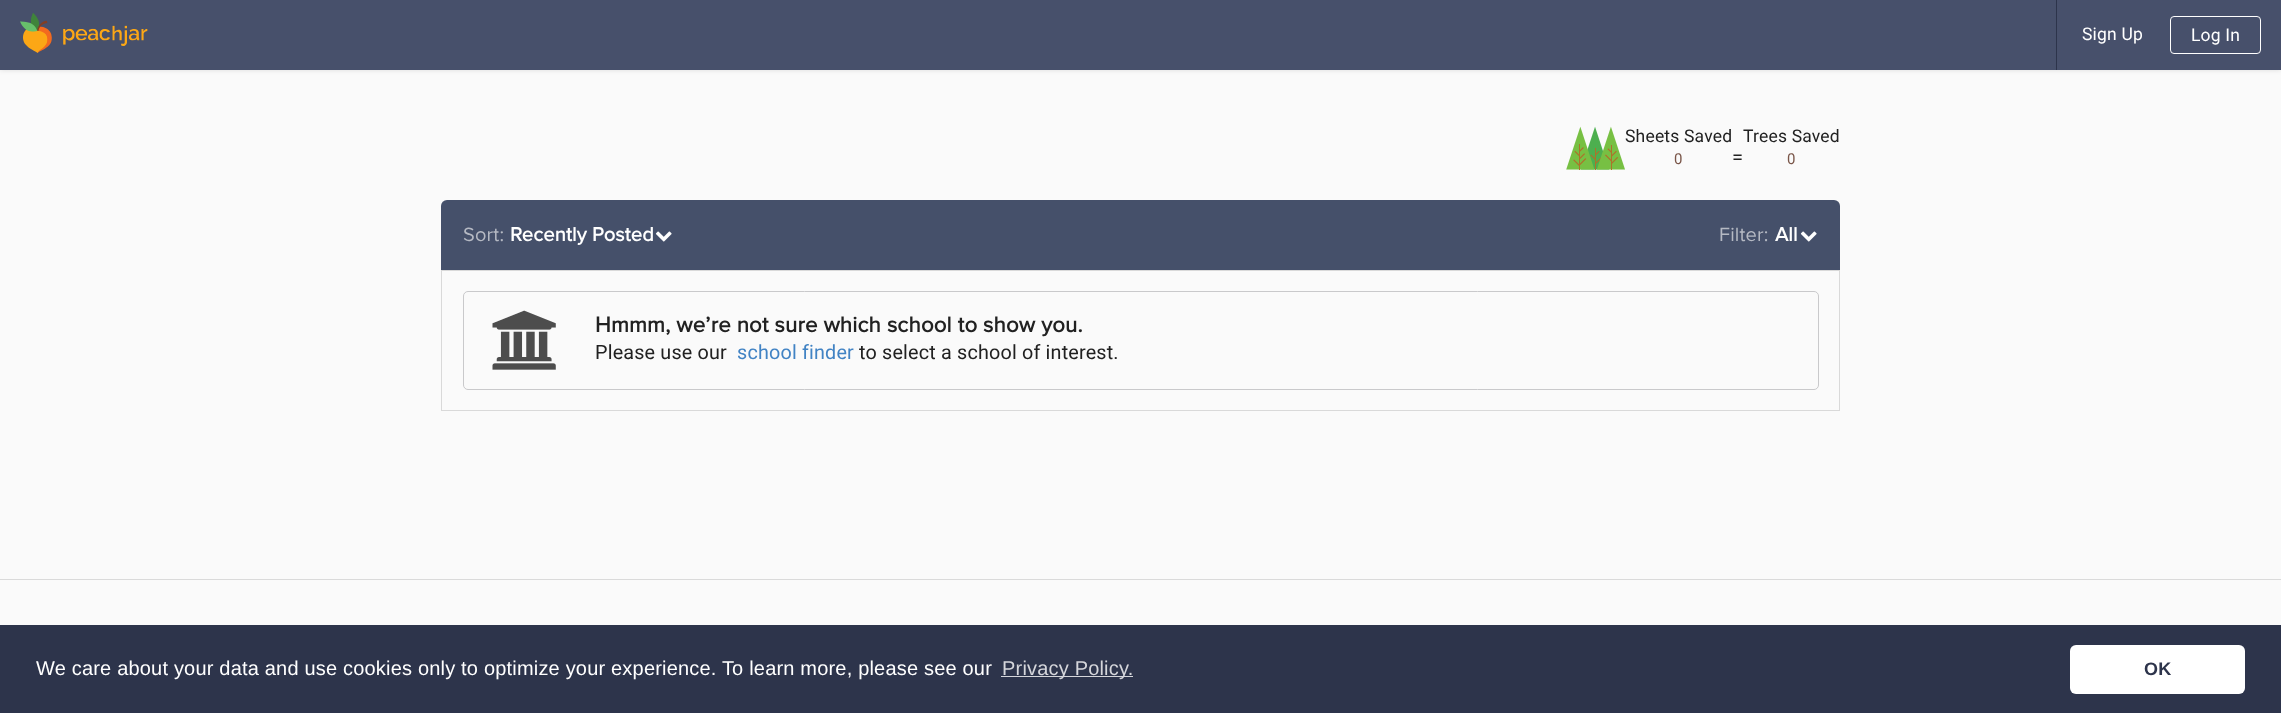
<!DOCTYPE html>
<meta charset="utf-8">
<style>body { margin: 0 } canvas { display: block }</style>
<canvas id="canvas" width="2281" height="713"></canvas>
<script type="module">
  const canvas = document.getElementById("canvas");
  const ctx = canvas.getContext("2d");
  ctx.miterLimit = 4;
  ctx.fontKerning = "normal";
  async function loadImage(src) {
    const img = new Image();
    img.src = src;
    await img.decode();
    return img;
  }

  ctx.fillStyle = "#fafafa";
  ctx.fillRect(0, 0, 2281, 713);
  ctx.fillStyle = "rgba(0, 0, 0, 0.12)";
  ctx.filter = "blur(2.5px)";
  ctx.beginPath();
  ctx.rect(0, 0, 2281, 70);
  ctx.fill();
  ctx.filter = "none";
  ctx.fillStyle = "#47506b";
  ctx.fillRect(0, 0, 2281, 70);
  ctx.drawImage(await loadImage("img1.png"), 20, 13, 128, 40);
  ctx.fillStyle = "#2d344b";
  ctx.fillRect(2056, 0, 1, 70);
  ctx.letterSpacing = "0.19px";
  ctx.font = "17.5px Roboto";
  ctx.fillStyle = "#ffffff";
  ctx.fillText("Sign Up", 2082, 40);
  ctx.beginPath();
  ctx.roundRect(2170.5, 16.5, 90, 37, 3.5);
  ctx.strokeStyle = "#ffffff";
  ctx.stroke();
  ctx.fillText("Log In", 2191, 41);
  ctx.drawImage(await loadImage("img2.png"), 1566, 126, 59, 44);
  ctx.fillStyle = "#212121";
  ctx.fillText("Sheets Saved", 1625, 142);
  ctx.font = "15px Roboto";
  ctx.fillStyle = "#795548";
  ctx.fillText("0", 1674, 164);
  ctx.font = "20px Roboto";
  ctx.fillStyle = "#212121";
  ctx.fillText("=", 1732, 164);
  ctx.font = "17.5px Roboto";
  ctx.fillText("Trees Saved", 1743, 142);
  ctx.font = "15px Roboto";
  ctx.fillStyle = "#795548";
  ctx.fillText("0", 1787, 164);
  ctx.fillStyle = "#45506a";
  ctx.beginPath();
  ctx.roundRect(441, 200, 1399, 70, [6, 6, 0, 0]);
  ctx.fill();
  ctx.font = "20px Proxima Nova";
  ctx.fillStyle = "#b5b9c3";
  ctx.fillText("Sort:", 463, 241);
  ctx.font = "bold 20px Proxima Nova";
  ctx.fillStyle = "#ffffff";
  ctx.fillText("Recently Posted", 510, 241);
  ctx.drawImage(await loadImage("img3.png"), 655, 231, 17, 11);
  ctx.font = "20px Proxima Nova";
  ctx.fillStyle = "#b5b9c3";
  ctx.fillText("Filter:", 1719, 241);
  ctx.font = "bold 20px Proxima Nova";
  ctx.fillStyle = "#ffffff";
  ctx.fillText("All", 1775, 241);
  ctx.drawImage(await loadImage("img3.png"), 1800, 231, 17, 11);
  ctx.strokeStyle = "#d9d9d9";
  ctx.strokeRect(441.5, 270.5, 1398, 140);
  ctx.beginPath();
  ctx.roundRect(463.5, 291.5, 1355, 98, 4.5);
  ctx.strokeStyle = "#c9c9cb";
  ctx.stroke();
  ctx.drawImage(await loadImage("img4.png"), 492, 310, 64, 60);
  ctx.font = "bold 22.15px Proxima Nova";
  ctx.fillStyle = "#212121";
  ctx.fillText("Hmmm, we’re not sure which school to show you.", 595, 332);
  ctx.font = "19.75px Roboto";
  ctx.fillText("Please use our", 595, 359);
  ctx.fillStyle = "#4183c4";
  ctx.fillText("school finder", 737, 359);
  ctx.fillStyle = "#212121";
  ctx.fillText("to select a school of interest.", 859, 359);
  ctx.fillStyle = "#dadada";
  ctx.fillRect(0, 579, 2281, 1);
  ctx.fillStyle = "#2d344b";
  ctx.fillRect(0, 625, 2281, 88);
  ctx.font = "20px Liberation Sans";
  ctx.fillStyle = "#ffffff";
  ctx.fillText("We care about your data and use cookies only to optimize your experience. To learn more, please see our", 36, 675);
  ctx.fillStyle = "#d5d6db";
  ctx.fillRect(1001, 676, 132, 1);
  ctx.fillText("Privacy Policy.", 1002, 675);
  ctx.fillStyle = "#ffffff";
  ctx.beginPath();
  ctx.roundRect(2070, 645, 175, 49, 6);
  ctx.fill();
  ctx.font = "bold 18px Liberation Sans";
  ctx.fillStyle = "#2d344b";
  ctx.fillText("OK", 2144, 675);
</script>
